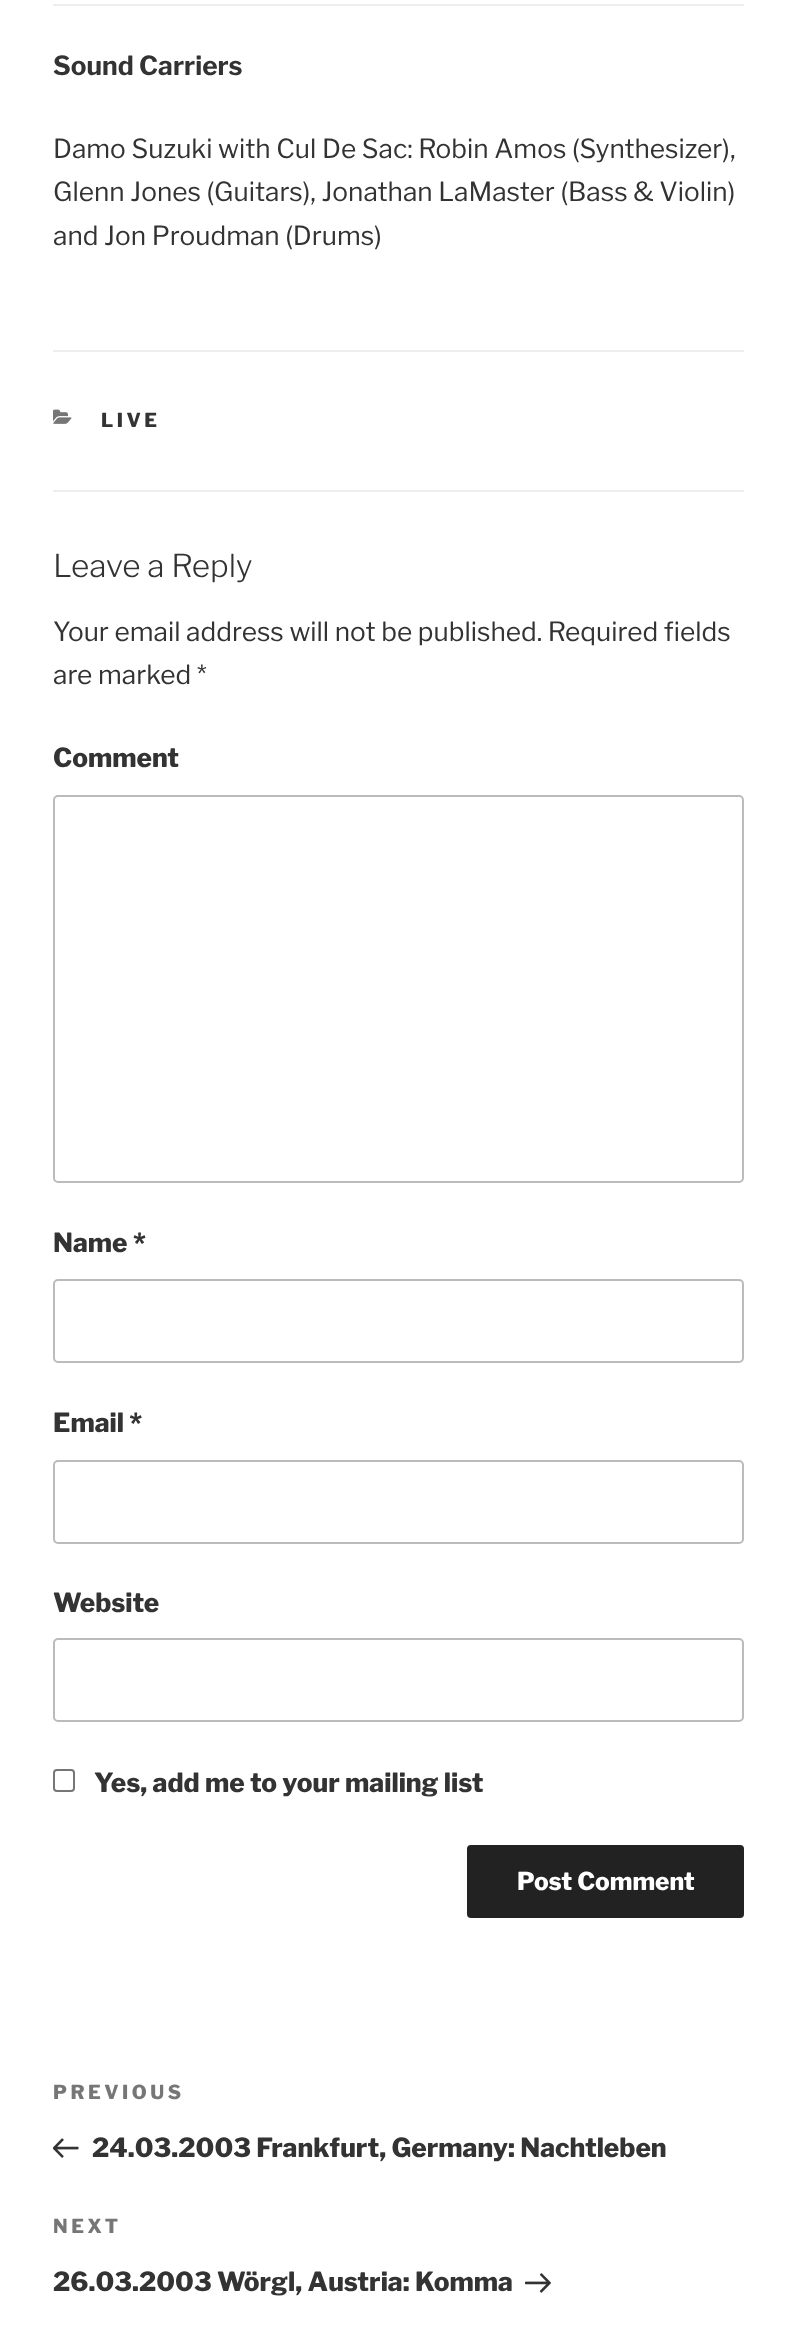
<!DOCTYPE html>
<meta charset="utf-8">
<style>body { margin: 0 } canvas { display: block }</style>
<canvas id="canvas" width="796" height="2351"></canvas>
<script type="module">
  const canvas = document.getElementById("canvas");
  const ctx = canvas.getContext("2d");
  ctx.miterLimit = 4;
  ctx.fontKerning = "normal";
  async function loadImage(src) {
    const img = new Image();
    img.src = src;
    await img.decode();
    return img;
  }

  ctx.fillStyle = "#ffffff";
  ctx.fillRect(0, 0, 796, 2351);
  ctx.fillStyle = "#eeeeee";
  ctx.fillRect(53, 4, 691, 2);
  ctx.font = "bold 26.25px Libre Franklin";
  ctx.fillStyle = "#333333";
  ctx.fillText("Sound Carriers", 53, 75);
  ctx.font = "26.25px Libre Franklin";
  ctx.fillText("Damo Suzuki with Cul De Sac: Robin Amos (Synthesizer),", 53, 158);
  ctx.fillText("Glenn Jones (Guitars), Jonathan LaMaster (Bass & Violin)", 53, 201);
  ctx.fillText("and Jon Proudman (Drums)", 53, 245);
  ctx.fillStyle = "#eeeeee";
  ctx.fillRect(53, 350, 691, 2);
  ctx.fillRect(53, 490, 691, 2);
  ctx.drawImage(await loadImage("img1.png"), 53, 409, 19, 15);
  ctx.letterSpacing = "3.5px";
  ctx.font = "800 19.25px Libre Franklin";
  ctx.fillStyle = "#333333";
  ctx.fillText("LIVE", 101, 427);
  ctx.letterSpacing = "0px";
  ctx.font = "300 31.5px Libre Franklin";
  ctx.fillText("Leave a Reply", 53, 577);
  ctx.font = "26.25px Libre Franklin";
  ctx.fillText("Your email address will not be published. Required fields", 53, 641);
  ctx.fillText("are marked *", 53, 684);
  ctx.font = "800 26.25px Libre Franklin";
  ctx.fillText("Comment", 53, 767);
  ctx.beginPath();
  ctx.roundRect(54, 796, 689, 386, 4);
  ctx.strokeStyle = "#bbbbbb";
  ctx.lineWidth = 2;
  ctx.stroke();
  ctx.fillText("Name *", 53, 1252);
  ctx.beginPath();
  ctx.roundRect(54, 1280, 689, 82, 4);
  ctx.stroke();
  ctx.fillText("Email *", 53, 1432);
  ctx.beginPath();
  ctx.roundRect(54, 1461, 689, 82, 4);
  ctx.stroke();
  ctx.fillText("Website", 53, 1612);
  ctx.beginPath();
  ctx.roundRect(54, 1639, 689, 82, 4);
  ctx.stroke();
  ctx.beginPath();
  ctx.roundRect(54, 1770, 20, 21, 3);
  ctx.strokeStyle = "#767676";
  ctx.stroke();
  ctx.fillText("Yes, add me to your mailing list", 94, 1792);
  ctx.fillStyle = "#222222";
  ctx.beginPath();
  ctx.roundRect(467, 1845, 277, 73, 4);
  ctx.fill();
  ctx.font = "800 24.5px Libre Franklin";
  ctx.fillStyle = "#ffffff";
  ctx.fillText("Post Comment", 517, 1890);
  ctx.letterSpacing = "3.5px";
  ctx.font = "800 19.25px Libre Franklin";
  ctx.fillStyle = "#767676";
  ctx.fillText("PREVIOUS", 53, 2099);
  ctx.drawImage(await loadImage("img2.png"), 53, 2138, 26, 20);
  ctx.letterSpacing = "0px";
  ctx.font = "800 26.25px Libre Franklin";
  ctx.fillStyle = "#333333";
  ctx.fillText("24.03.2003 Frankfurt, Germany: Nachtleben", 92, 2157);
  ctx.letterSpacing = "3.5px";
  ctx.font = "800 19.25px Libre Franklin";
  ctx.fillStyle = "#767676";
  ctx.fillText("NEXT", 53, 2233);
  ctx.letterSpacing = "0px";
  ctx.font = "800 26.25px Libre Franklin";
  ctx.fillStyle = "#333333";
  ctx.fillText("26.03.2003 Wörgl, Austria: Komma", 53, 2291);
  ctx.drawImage(await loadImage("img3.png"), 525, 2273, 26, 20);
</script>
